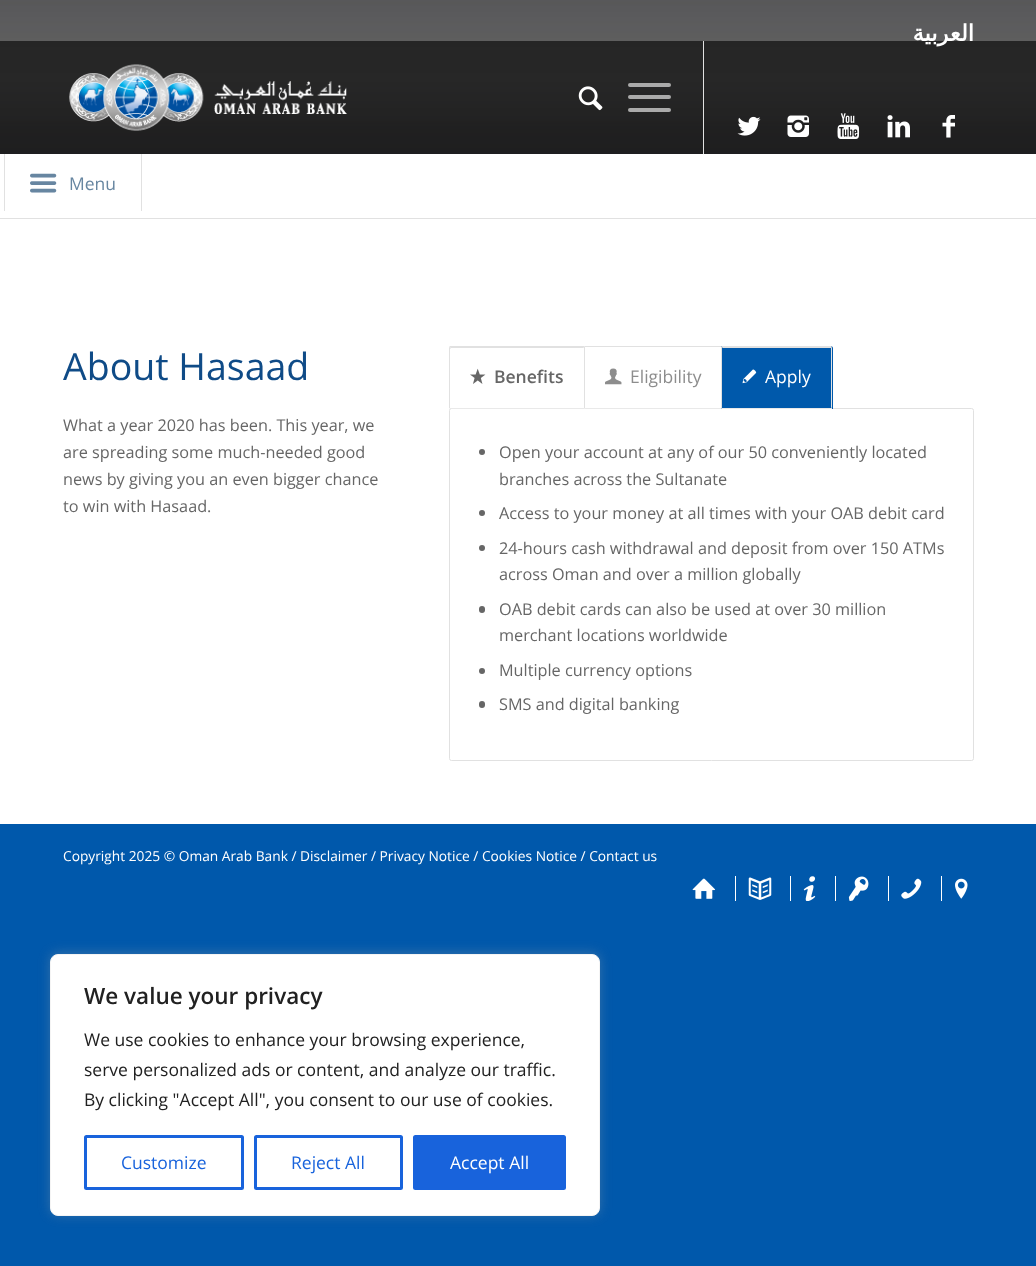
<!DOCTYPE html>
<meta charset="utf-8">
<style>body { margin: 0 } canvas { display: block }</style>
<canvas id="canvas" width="1036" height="1266"></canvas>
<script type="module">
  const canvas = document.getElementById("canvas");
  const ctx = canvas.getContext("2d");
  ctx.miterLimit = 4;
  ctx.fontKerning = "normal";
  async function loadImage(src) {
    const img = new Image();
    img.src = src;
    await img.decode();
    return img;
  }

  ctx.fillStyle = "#0058ab";
  ctx.fillRect(0, 0, 1036, 1266);
  ctx.drawImage(await loadImage("img1.png"), 0, 0, 1036, 154);
  ctx.fillStyle = "rgba(0, 0, 0, 0.6)";
  ctx.fillRect(0, 41, 1036, 113);
  ctx.direction = "rtl";
  ctx.font = "bold 22.5px DejaVu Sans";
  ctx.fillStyle = "#ffffff";
  ctx.fillText("العربية", 974, 41);
  ctx.drawImage(await loadImage("img2.png"), 69, 64, 278, 67);
  ctx.fillStyle = "#e1e1e1";
  ctx.fillRect(703, 41, 1, 113);
  ctx.drawImage(await loadImage("img3.png"), 578, 86, 25, 25);
  ctx.fillStyle = "#aaaaaa";
  ctx.beginPath();
  ctx.roundRect(628, 95, 43, 4, 2);
  ctx.fill();
  ctx.beginPath();
  ctx.roundRect(628, 83, 43, 4, 2);
  ctx.fill();
  ctx.beginPath();
  ctx.roundRect(628, 108, 43, 4, 2);
  ctx.fill();
  ctx.drawImage(await loadImage("img4.png"), 737, 116, 24, 20);
  ctx.drawImage(await loadImage("img5.png"), 787, 115, 22, 22);
  ctx.drawImage(await loadImage("img6.png"), 837, 113, 23, 26);
  ctx.drawImage(await loadImage("img7.png"), 887, 115, 23, 23);
  ctx.drawImage(await loadImage("img8.png"), 942, 115, 13, 23);
  ctx.fillStyle = "#ffffff";
  ctx.fillRect(0, 154, 1036, 670);
  ctx.fillStyle = "#e1e1e1";
  ctx.fillRect(0, 218, 1036, 1);
  ctx.fillRect(141, 154, 1, 57);
  ctx.fillRect(4, 154, 1, 57);
  ctx.drawImage(await loadImage("img9.png"), 30, 173, 27, 20);
  ctx.direction = "ltr";
  ctx.font = "17.5px Open Sans";
  ctx.fillStyle = "#6786a1";
  ctx.fillText("Menu", 69, 190);
  ctx.font = "37.5px Open Sans";
  ctx.fillStyle = "#0f4b87";
  ctx.fillText("About Hasaad", 63, 380);
  ctx.font = "16.25px Open Sans";
  ctx.fillStyle = "#666666";
  ctx.fillText("What a year 2020 has been. This year, we", 63, 431);
  ctx.fillText("are spreading some much-needed good", 63, 458);
  ctx.fillText("news by giving you an even bigger chance", 63, 485);
  ctx.fillText("to win with Hasaad.", 63, 512);
  ctx.fillStyle = "#e1e1e1";
  ctx.fillRect(584, 346, 139, 1);
  ctx.beginPath();
  ctx.roundRect(449.5, 408.5, 524, 352, 2);
  ctx.strokeStyle = "#e1e1e1";
  ctx.stroke();
  ctx.fillStyle = "#e9e9e9";
  ctx.fillRect(584, 408, 139, 1);
  ctx.fillStyle = "#ffffff";
  ctx.beginPath();
  ctx.roundRect(449, 346, 136, 63, [2.5, 0, 0, 0]);
  ctx.fill();
  ctx.fillStyle = "#e1e1e1";
  ctx.beginPath();
  ctx.moveTo(451, 348);
  ctx.lineTo(449, 347);
  ctx.lineTo(450, 346);
  ctx.lineTo(585, 346);
  ctx.lineTo(583, 348);
  ctx.closePath();
  ctx.fill();
  ctx.beginPath();
  ctx.moveTo(585, 346);
  ctx.lineTo(583, 348);
  ctx.lineTo(584, 348);
  ctx.lineTo(584, 408);
  ctx.lineTo(585, 409);
  ctx.closePath();
  ctx.fill();
  ctx.fillStyle = "#e9e9e9";
  ctx.beginPath();
  ctx.moveTo(585, 409);
  ctx.lineTo(449, 409);
  ctx.lineTo(450, 408);
  ctx.lineTo(584, 408);
  ctx.closePath();
  ctx.fill();
  ctx.fillStyle = "#e1e1e1";
  ctx.beginPath();
  ctx.moveTo(449, 408);
  ctx.lineTo(449, 349);
  ctx.lineTo(449, 347);
  ctx.lineTo(451, 348);
  ctx.lineTo(450, 349);
  ctx.lineTo(450, 408);
  ctx.closePath();
  ctx.fill();
  ctx.drawImage(await loadImage("img10.png"), 470, 368, 16, 16);
  ctx.font = "600 17.5px Open Sans";
  ctx.fillStyle = "#666666";
  ctx.fillText("Benefits", 494, 383);
  ctx.drawImage(await loadImage("img11.png"), 605, 368, 17, 17);
  ctx.font = "17.5px Open Sans";
  ctx.fillStyle = "#8d8d8d";
  ctx.fillText("Eligibility", 630, 383);
  ctx.fillStyle = "#0059ab";
  ctx.beginPath();
  ctx.roundRect(721, 346, 112, 63, [0, 2.5, 0, 0]);
  ctx.fill();
  ctx.fillStyle = "#e1e1e1";
  ctx.beginPath();
  ctx.moveTo(721, 346);
  ctx.lineTo(831, 346);
  ctx.lineTo(832, 347);
  ctx.lineTo(831, 348);
  ctx.lineTo(723, 348);
  ctx.closePath();
  ctx.fill();
  ctx.beginPath();
  ctx.moveTo(832, 347);
  ctx.lineTo(832, 408);
  ctx.lineTo(831, 407);
  ctx.lineTo(831, 348);
  ctx.closePath();
  ctx.fill();
  ctx.fillStyle = "#e9e9e9";
  ctx.beginPath();
  ctx.moveTo(832, 408);
  ctx.lineTo(832, 409);
  ctx.lineTo(721, 409);
  ctx.lineTo(722, 408);
  ctx.lineTo(831, 408);
  ctx.lineTo(831, 407);
  ctx.closePath();
  ctx.fill();
  ctx.fillStyle = "#e1e1e1";
  ctx.beginPath();
  ctx.moveTo(722, 348);
  ctx.lineTo(723, 348);
  ctx.lineTo(721, 346);
  ctx.lineTo(721, 409);
  ctx.lineTo(722, 408);
  ctx.closePath();
  ctx.fill();
  ctx.drawImage(await loadImage("img12.png"), 742, 369, 15, 15);
  ctx.fillStyle = "#ffffff";
  ctx.fillText("Apply", 765, 383);
  ctx.fillStyle = "#666666";
  ctx.beginPath();
  ctx.arc(482, 452, 3, 0, Math.PI * 2);
  ctx.fill();
  ctx.font = "16.25px Open Sans";
  ctx.fillText("Open your account at any of our 50 conveniently located", 499, 458);
  ctx.fillText("branches across the Sultanate", 499, 485);
  ctx.beginPath();
  ctx.arc(482, 513, 3, 0, Math.PI * 2);
  ctx.fill();
  ctx.fillText("Access to your money at all times with your OAB debit card", 499, 519);
  ctx.beginPath();
  ctx.arc(482, 548, 3, 0, Math.PI * 2);
  ctx.fill();
  ctx.fillText("24-hours cash withdrawal and deposit from over 150 ATMs", 499, 554);
  ctx.fillText("across Oman and over a million globally", 499, 580);
  ctx.beginPath();
  ctx.roundRect(479, 606, 6, 7, 3);
  ctx.fill();
  ctx.fillText("OAB debit cards can also be used at over 30 million", 499, 615);
  ctx.fillText("merchant locations worldwide", 499, 641);
  ctx.beginPath();
  ctx.arc(482, 671, 3, 0, Math.PI * 2);
  ctx.fill();
  ctx.fillText("Multiple currency options", 499, 676);
  ctx.beginPath();
  ctx.roundRect(479, 701, 6, 7, 3);
  ctx.fill();
  ctx.fillText("SMS and digital banking", 499, 710);
  ctx.font = "13.75px Open Sans";
  ctx.fillStyle = "#ffffff";
  ctx.fillText("Copyright 2025 © Oman Arab Bank / Disclaimer / Privacy Notice / Cookies Notice / Contact us", 63, 861);
  ctx.drawImage(await loadImage("img13.png"), 692, 878, 24, 21);
  ctx.fillRect(735, 876, 1, 25);
  ctx.drawImage(await loadImage("img14.png"), 748, 877, 24, 23);
  ctx.fillRect(790, 876, 1, 25);
  ctx.drawImage(await loadImage("img15.png"), 803, 876, 13, 25);
  ctx.fillRect(835, 876, 1, 25);
  ctx.drawImage(await loadImage("img16.png"), 848, 876, 21, 25);
  ctx.fillRect(888, 876, 1, 25);
  ctx.drawImage(await loadImage("img17.png"), 901, 878, 21, 21);
  ctx.fillRect(941, 876, 1, 25);
  ctx.drawImage(await loadImage("img18.png"), 955, 878, 13, 21);
  ctx.fillStyle = "rgba(172, 171, 171, 0.3)";
  ctx.filter = "blur(6px)";
  ctx.beginPath();
  ctx.roundRect(50, 953, 550, 262, 8);
  ctx.fill();
  ctx.filter = "none";
  ctx.fillStyle = "#ffffff";
  ctx.beginPath();
  ctx.roundRect(50.5, 954.5, 549, 261, 7.5);
  ctx.fill();
  ctx.strokeStyle = "#f4f4f4";
  ctx.stroke();
  ctx.font = "600 22.5px Open Sans";
  ctx.fillStyle = "#212121";
  ctx.fillText("We value your privacy", 84, 1004);
  ctx.font = "17.5px Open Sans";
  ctx.fillText("We use cookies to enhance your browsing experience,", 84, 1046);
  ctx.fillText("serve personalized ads or content, and analyze our traffic.", 84, 1076);
  ctx.fillText("By clicking \"Accept All\", you consent to our use of cookies.", 84, 1106);
  ctx.beginPath();
  ctx.roundRect(85.5, 1136.5, 157, 52, 1);
  ctx.strokeStyle = "#1863dc";
  ctx.lineWidth = 3;
  ctx.stroke();
  ctx.fillStyle = "#1863dc";
  ctx.fillText("Customize", 121, 1169);
  ctx.beginPath();
  ctx.roundRect(255.5, 1136.5, 146, 52, 1);
  ctx.stroke();
  ctx.fillText("Reject All", 291, 1169);
  ctx.beginPath();
  ctx.roundRect(414.5, 1136.5, 150, 52, 1);
  ctx.fill();
  ctx.stroke();
  ctx.fillStyle = "#ffffff";
  ctx.fillText("Accept All", 450, 1169);
</script>
